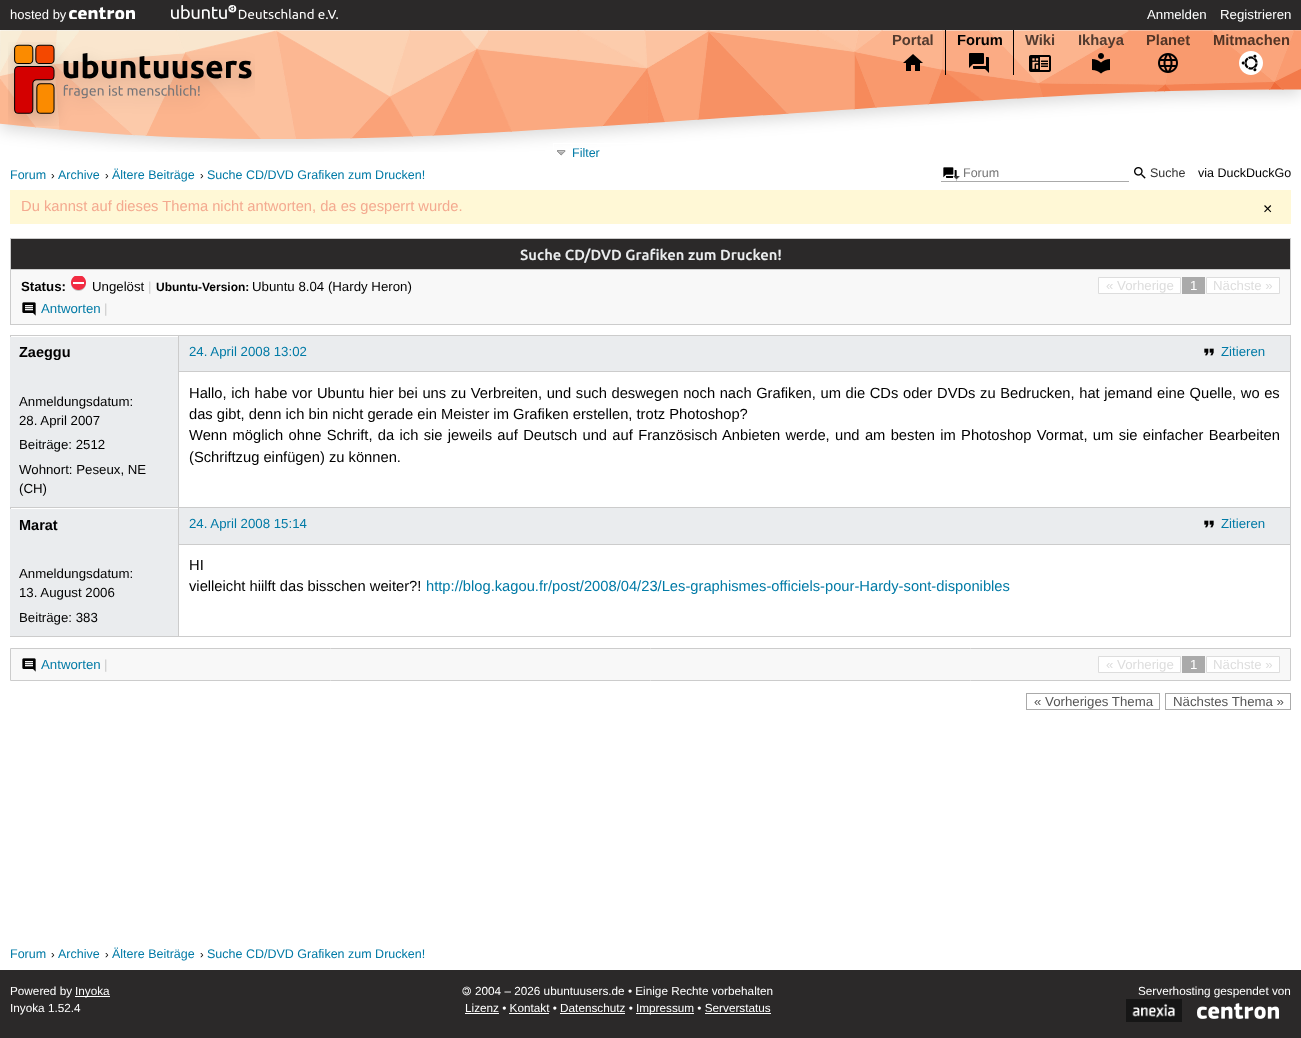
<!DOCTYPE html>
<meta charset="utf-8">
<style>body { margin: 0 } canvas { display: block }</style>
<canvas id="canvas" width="1301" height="1038"></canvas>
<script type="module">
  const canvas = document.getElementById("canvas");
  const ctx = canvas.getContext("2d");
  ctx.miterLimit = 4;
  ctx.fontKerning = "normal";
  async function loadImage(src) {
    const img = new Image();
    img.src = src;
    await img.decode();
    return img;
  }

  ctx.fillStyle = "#ffffff";
  ctx.fillRect(0, 0, 1301, 1038);
  ctx.fillStyle = "#2b2929";
  ctx.fillRect(0, 0, 1301, 30);
  ctx.font = "13px Liberation Sans";
  ctx.fillStyle = "#ffffff";
  ctx.fillText("hosted by", 10, 19);
  ctx.drawImage(await loadImage("img1.png"), 69, 7, 66, 12);
  ctx.drawImage(await loadImage("img2.png"), 171, 5, 167, 14);
  ctx.font = "13.25px Liberation Sans";
  ctx.fillText("Anmelden", 1147, 19);
  ctx.fillText("Registrieren", 1220, 19);
  ctx.drawImage(await loadImage("img3.png"), 0, 30, 1301, 122);
  ctx.drawImage(await loadImage("img4.png"), 8, 42, 247, 84);
  ctx.font = "bold 14.72px Liberation Sans";
  ctx.fillStyle = "#533b2f";
  ctx.fillText("Portal", 892, 45);
  ctx.drawImage(await loadImage("img5.png"), 903, 54, 20, 17);
  ctx.fillStyle = "#000000";
  ctx.fillRect(1013, 30, 1, 45);
  ctx.fillRect(945, 30, 1, 45);
  ctx.fillText("Forum", 957, 45);
  ctx.drawImage(await loadImage("img6.png"), 969, 53, 20, 20);
  ctx.fillStyle = "#533b2f";
  ctx.fillText("Wiki", 1025, 45);
  ctx.drawImage(await loadImage("img7.png"), 1029, 55, 22, 17);
  ctx.fillText("Ikhaya", 1078, 45);
  ctx.drawImage(await loadImage("img8.png"), 1092, 53, 18, 21);
  ctx.fillStyle = "#523425";
  ctx.fillText("Planet", 1146, 45);
  ctx.drawImage(await loadImage("img9.png"), 1158, 53, 20, 20);
  ctx.fillText("Mitmachen", 1213, 45);
  ctx.drawImage(await loadImage("img10.png"), 1239, 51, 24, 24);
  ctx.strokeStyle = "#ffffff";
  ctx.strokeRect(553.5, 143.5, 241, 22);
  ctx.drawImage(await loadImage("img11.png"), 557, 150, 9, 6);
  ctx.font = "12.5px Liberation Sans";
  ctx.fillStyle = "#007aa6";
  ctx.fillText("Filter", 572, 157);
  ctx.fillText("Forum", 10, 179);
  ctx.font = "11px Liberation Sans";
  ctx.fillStyle = "#000000";
  ctx.fillText("›", 51, 179);
  ctx.font = "12.5px Liberation Sans";
  ctx.fillStyle = "#007aa6";
  ctx.fillText("Archive", 58, 179);
  ctx.font = "11px Liberation Sans";
  ctx.fillStyle = "#000000";
  ctx.fillText("›", 105, 179);
  ctx.font = "12.5px Liberation Sans";
  ctx.fillStyle = "#007aa6";
  ctx.fillText("Ältere Beiträge", 112, 179);
  ctx.font = "11px Liberation Sans";
  ctx.fillStyle = "#000000";
  ctx.fillText("›", 200, 179);
  ctx.font = "12.5px Liberation Sans";
  ctx.fillStyle = "#007aa6";
  ctx.fillText("Suche CD/DVD Grafiken zum Drucken!", 207, 179);
  ctx.drawImage(await loadImage("img13.png"), 943, 167, 14, 14);
  ctx.drawImage(await loadImage("img12.png"), 953, 176, 7, 4);
  ctx.fillStyle = "#aaaaaa";
  ctx.fillRect(941, 181, 188, 1);
  ctx.fillStyle = "#757575";
  ctx.fillText("Forum", 963, 177);
  ctx.drawImage(await loadImage("img14.png"), 1134, 167, 12, 12);
  ctx.fillStyle = "#333333";
  ctx.fillText("Suche", 1150, 177);
  ctx.fillStyle = "#000000";
  ctx.fillText("via DuckDuckGo", 1198, 177);
  ctx.fillStyle = "#fff8d6";
  ctx.fillRect(10, 190, 1281, 34);
  ctx.font = "14.72px Liberation Sans";
  ctx.fillStyle = "#f4aa90";
  ctx.fillText("Du kannst auf dieses Thema nicht antworten, da es gesperrt wurde.", 21, 211);
  ctx.font = "16px Liberation Sans";
  ctx.fillStyle = "#000000";
  ctx.fillText("×", 1263, 214);
  ctx.fillStyle = "#f8f8f8";
  ctx.fillRect(11, 270, 1279, 54);
  ctx.strokeStyle = "#cccccc";
  ctx.strokeRect(10.5, 238.5, 1280, 86);
  ctx.fillStyle = "#2b2929";
  ctx.fillRect(11, 239, 1279, 30);
  ctx.fillStyle = "#cccccc";
  ctx.fillRect(11, 269, 1279, 1);
  ctx.font = "bold 14.72px Ubuntu";
  ctx.fillStyle = "#eaecee";
  ctx.fillText("Suche CD/DVD Grafiken zum Drucken!", 520, 260);
  ctx.font = "bold 13.25px Liberation Sans";
  ctx.fillStyle = "#000000";
  ctx.fillText("Status:", 21, 291);
  ctx.drawImage(await loadImage("img15.png"), 71, 276, 15, 15);
  ctx.font = "13.25px Liberation Sans";
  ctx.fillText("Ungelöst", 92, 291);
  ctx.fillStyle = "#cccccc";
  ctx.fillText("|", 148, 291);
  ctx.font = "bold 12px Liberation Sans";
  ctx.fillStyle = "#000000";
  ctx.fillText("Ubuntu-Version:", 156, 291);
  ctx.font = "13.25px Liberation Sans";
  ctx.fillText("Ubuntu 8.04 (Hardy Heron)", 252, 291);
  ctx.fillStyle = "#ffffff";
  ctx.beginPath();
  ctx.rect(1098.5, 277.5, 82, 16);
  ctx.fill();
  ctx.strokeStyle = "#dddddd";
  ctx.stroke();
  ctx.fillStyle = "#dddddd";
  ctx.fillText("« Vorherige", 1106, 290);
  ctx.fillStyle = "#aaaaaa";
  ctx.fillRect(1182, 277, 23, 17);
  ctx.fillStyle = "#ffffff";
  ctx.fillText("1", 1190, 290);
  ctx.beginPath();
  ctx.rect(1206.5, 277.5, 73, 16);
  ctx.fill();
  ctx.stroke();
  ctx.fillStyle = "#dddddd";
  ctx.fillText("Nächste »", 1213, 290);
  ctx.drawImage(await loadImage("img16.png"), 22, 302, 14, 14);
  ctx.fillStyle = "#007aa6";
  ctx.fillText("Antworten", 41, 313);
  ctx.fillStyle = "#cccccc";
  ctx.fillText("|", 104, 313);
  ctx.fillRect(10, 335, 1281, 1);
  ctx.fillRect(1290, 335, 1, 302);
  ctx.fillRect(10, 636, 1281, 1);
  ctx.fillRect(10, 335, 1, 302);
  ctx.fillStyle = "#eaecee";
  ctx.fillRect(10, 337, 168, 170);
  ctx.font = "bold 14.5px Liberation Sans";
  ctx.fillStyle = "#000000";
  ctx.fillText("Zaeggu", 19, 357);
  ctx.font = "13.25px Liberation Sans";
  ctx.fillText("Anmeldungsdatum:", 19, 406);
  ctx.fillText("28. April 2007", 19, 425);
  ctx.fillText("Beiträge: 2512", 19, 449);
  ctx.fillText("Wohnort: Peseux, NE", 19, 474);
  ctx.fillText("(CH)", 19, 493);
  ctx.fillStyle = "#eaecee";
  ctx.fillRect(179, 336, 1111, 35);
  ctx.fillStyle = "#cccccc";
  ctx.fillRect(179, 371, 1111, 1);
  ctx.fillStyle = "#007aa6";
  ctx.fillText("24. April 2008 13:02", 189, 356);
  ctx.drawImage(await loadImage("img17.png"), 1204, 348, 10, 8);
  ctx.fillText("Zitieren", 1221, 356);
  ctx.wordSpacing = "0.5px";
  ctx.font = "14.72px Liberation Sans";
  ctx.fillStyle = "#000000";
  ctx.fillText("Hallo, ich habe vor Ubuntu hier bei uns zu Verbreiten, und such deswegen noch nach Grafiken, um die CDs oder DVDs zu Bedrucken, hat jemand eine Quelle, wo es", 189, 398);
  ctx.wordSpacing = "0px";
  ctx.fillText("das gibt, denn ich bin nicht gerade ein Meister im Grafiken erstellen, trotz Photoshop?", 189, 419);
  ctx.wordSpacing = "1.25px";
  ctx.fillText("Wenn möglich ohne Schrift, da ich sie jeweils auf Deutsch und auf Französisch Anbieten werde, und am besten im Photoshop Vormat, um sie einfacher Bearbeiten", 189, 440);
  ctx.wordSpacing = "0px";
  ctx.fillText("(Schriftzug einfügen) zu können.", 189, 462);
  ctx.fillStyle = "#cccccc";
  ctx.fillRect(10, 507, 1281, 1);
  ctx.fillRect(178, 335, 1, 302);
  ctx.fillStyle = "#eaecee";
  ctx.fillRect(10, 509, 168, 127);
  ctx.font = "bold 14.5px Liberation Sans";
  ctx.fillStyle = "#000000";
  ctx.fillText("Marat", 19, 530);
  ctx.font = "13.25px Liberation Sans";
  ctx.fillText("Anmeldungsdatum:", 19, 578);
  ctx.fillText("13. August 2006", 19, 597);
  ctx.fillText("Beiträge: 383", 19, 622);
  ctx.fillStyle = "#eaecee";
  ctx.fillRect(179, 508, 1111, 36);
  ctx.fillStyle = "#cccccc";
  ctx.fillRect(179, 544, 1111, 1);
  ctx.fillStyle = "#007aa6";
  ctx.fillText("24. April 2008 15:14", 189, 528);
  ctx.drawImage(await loadImage("img17.png"), 1204, 520, 10, 8);
  ctx.fillText("Zitieren", 1221, 528);
  ctx.font = "14.72px Liberation Sans";
  ctx.fillStyle = "#000000";
  ctx.fillText("HI", 189, 570);
  ctx.fillText("vielleicht hiilft das bisschen weiter?!", 189, 591);
  ctx.fillStyle = "#007aa6";
  ctx.fillText("http://blog.kagou.fr/post/2008/04/23/Les-graphismes-officiels-pour-Hardy-sont-disponibles", 426, 591);
  ctx.fillStyle = "#f8f8f8";
  ctx.beginPath();
  ctx.rect(10.5, 648.5, 1280, 32);
  ctx.fill();
  ctx.strokeStyle = "#cccccc";
  ctx.stroke();
  ctx.drawImage(await loadImage("img16.png"), 22, 658, 14, 14);
  ctx.font = "13.25px Liberation Sans";
  ctx.fillStyle = "#007aa6";
  ctx.fillText("Antworten", 41, 669);
  ctx.fillStyle = "#cccccc";
  ctx.fillText("|", 104, 669);
  ctx.fillStyle = "#ffffff";
  ctx.beginPath();
  ctx.rect(1098.5, 656.5, 82, 16);
  ctx.fill();
  ctx.strokeStyle = "#dddddd";
  ctx.stroke();
  ctx.fillStyle = "#dddddd";
  ctx.fillText("« Vorherige", 1106, 669);
  ctx.fillStyle = "#aaaaaa";
  ctx.fillRect(1182, 656, 23, 17);
  ctx.fillStyle = "#ffffff";
  ctx.fillText("1", 1190, 669);
  ctx.beginPath();
  ctx.rect(1206.5, 656.5, 73, 16);
  ctx.fill();
  ctx.stroke();
  ctx.fillStyle = "#dddddd";
  ctx.fillText("Nächste »", 1213, 669);
  ctx.strokeStyle = "#aaaaaa";
  ctx.strokeRect(1026.5, 693.5, 133, 16);
  ctx.fillStyle = "#555555";
  ctx.fillText("« Vorheriges Thema", 1034, 706);
  ctx.strokeRect(1165.5, 693.5, 125, 16);
  ctx.fillText("Nächstes Thema »", 1173, 706);
  ctx.font = "12.5px Liberation Sans";
  ctx.fillStyle = "#007aa6";
  ctx.fillText("Forum", 10, 958);
  ctx.font = "11px Liberation Sans";
  ctx.fillStyle = "#000000";
  ctx.fillText("›", 51, 958);
  ctx.font = "12.5px Liberation Sans";
  ctx.fillStyle = "#007aa6";
  ctx.fillText("Archive", 58, 958);
  ctx.font = "11px Liberation Sans";
  ctx.fillStyle = "#000000";
  ctx.fillText("›", 105, 958);
  ctx.font = "12.5px Liberation Sans";
  ctx.fillStyle = "#007aa6";
  ctx.fillText("Ältere Beiträge", 112, 958);
  ctx.font = "11px Liberation Sans";
  ctx.fillStyle = "#000000";
  ctx.fillText("›", 200, 958);
  ctx.font = "12.5px Liberation Sans";
  ctx.fillStyle = "#007aa6";
  ctx.fillText("Suche CD/DVD Grafiken zum Drucken!", 207, 958);
  ctx.fillStyle = "#2b2929";
  ctx.fillRect(0, 970, 1301, 68);
  ctx.font = "11.75px Liberation Sans";
  ctx.fillStyle = "#ffffff";
  ctx.fillText("Powered by", 10, 995);
  ctx.fillRect(75, 996, 35, 1);
  ctx.fillText("Inyoka", 75, 995);
  ctx.fillText("Inyoka 1.52.4", 10, 1012);
  ctx.font = "11.75px FreeSans";
  ctx.fillText("🄯", 462, 995);
  ctx.font = "11.75px Liberation Sans";
  ctx.fillText("2004 – 2026 ubuntuusers.de • Einige Rechte vorbehalten", 475, 995);
  ctx.fillText("Lizenz • Kontakt • Datenschutz •", 465, 1012);
  ctx.fillRect(465, 1013, 34, 1);
  ctx.fillRect(636, 1013, 58, 1);
  ctx.fillText("Impressum • Serverstatus", 636, 1012);
  ctx.fillRect(509, 1013, 40, 1);
  ctx.fillRect(560, 1013, 65, 1);
  ctx.fillRect(705, 1013, 66, 1);
  ctx.fillText("Serverhosting gespendet von", 1138, 995);
  ctx.fillRect(1132, 1003, 43, 15);
  ctx.drawImage(await loadImage("img18.png"), 1126, 999, 56, 23);
  ctx.drawImage(await loadImage("img19.png"), 1197, 1003, 82, 16);
</script>
